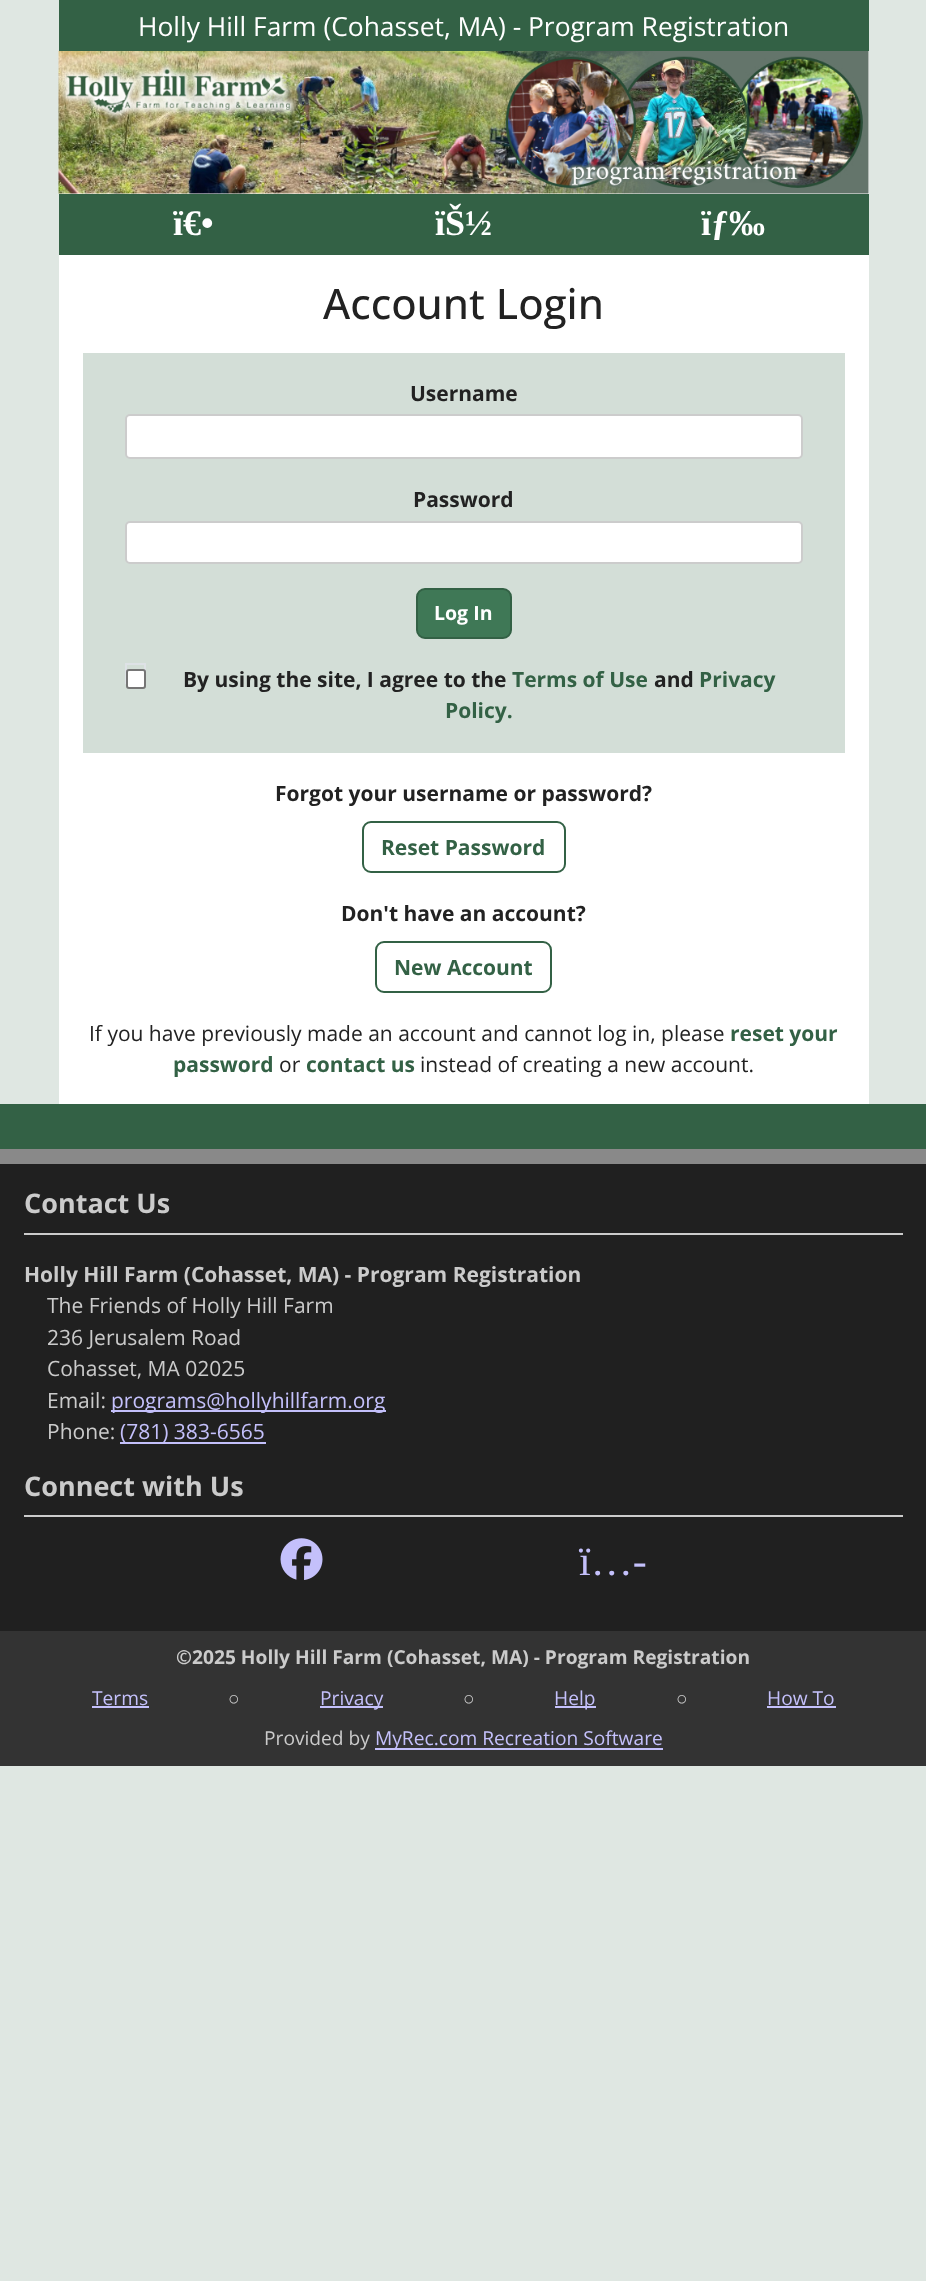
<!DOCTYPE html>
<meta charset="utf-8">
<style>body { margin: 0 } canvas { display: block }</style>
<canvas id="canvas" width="926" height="2281"></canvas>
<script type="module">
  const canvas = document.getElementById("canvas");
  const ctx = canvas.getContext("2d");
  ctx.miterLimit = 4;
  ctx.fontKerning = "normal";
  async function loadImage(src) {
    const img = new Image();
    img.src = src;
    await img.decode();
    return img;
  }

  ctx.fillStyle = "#dfe7e2";
  ctx.fillRect(0, 0, 926, 2281);
  ctx.fillStyle = "#ffffff";
  ctx.fillRect(59, 51, 810, 1053);
  ctx.fillStyle = "#336145";
  ctx.fillRect(59, 0, 810, 51);
  ctx.font = "26.4px Open Sans";
  ctx.fillStyle = "#ffffff";
  ctx.fillText("Holly Hill Farm (Cohasset, MA) - Program Registration", 138, 36);
  ctx.drawImage(await loadImage("img1.png"), 58, 51, 811, 143);
  ctx.fillStyle = "#336145";
  ctx.fillRect(59, 194, 810, 61);
  ctx.font = "bold 36px Liberation Serif";
  ctx.fillStyle = "#ffffff";
  ctx.fillText("ï€•", 173, 235);
  ctx.fillText("ïŠ½", 435, 235);
  ctx.fillText("ïƒ‰", 701, 235);
  ctx.font = "500 42px Open Sans";
  ctx.fillStyle = "#222222";
  ctx.fillText("Account Login", 323, 319);
  ctx.fillStyle = "#d3ded7";
  ctx.fillRect(83, 353, 762, 400);
  ctx.font = "bold 21px Open Sans";
  ctx.fillStyle = "#222222";
  ctx.fillText("Username", 410, 401);
  ctx.fillStyle = "#ffffff";
  ctx.beginPath();
  ctx.roundRect(126, 415, 676, 43, 4);
  ctx.fill();
  ctx.strokeStyle = "#cccccc";
  ctx.lineWidth = 2;
  ctx.stroke();
  ctx.fillStyle = "#222222";
  ctx.fillText("Password", 413, 507);
  ctx.fillStyle = "#ffffff";
  ctx.beginPath();
  ctx.roundRect(126, 522, 676, 41, 4);
  ctx.fill();
  ctx.stroke();
  ctx.fillStyle = "#3f7856";
  ctx.beginPath();
  ctx.roundRect(417, 589, 94, 49, 8);
  ctx.fill();
  ctx.strokeStyle = "#336145";
  ctx.stroke();
  ctx.font = "bold 19.5px Open Sans";
  ctx.fillStyle = "#ffffff";
  ctx.fillText("Log In", 434, 620);
  ctx.strokeStyle = "#dee2e6";
  ctx.strokeRect(126, 664, 19, 19);
  ctx.beginPath();
  ctx.roundRect(127, 670, 18, 18, 2);
  ctx.fill();
  ctx.strokeStyle = "#767676";
  ctx.stroke();
  ctx.font = "bold 21px Open Sans";
  ctx.fillStyle = "#222222";
  ctx.fillText("By using the site, I agree to the", 183, 687);
  ctx.fillStyle = "#336145";
  ctx.fillText("Terms of Use", 512, 687);
  ctx.fillStyle = "#222222";
  ctx.fillText("and", 654, 687);
  ctx.fillStyle = "#336145";
  ctx.fillText("Privacy", 699, 687);
  ctx.fillText("Policy.", 445, 718);
  ctx.fillStyle = "#222222";
  ctx.fillText("Forgot your username or password?", 275, 801);
  ctx.beginPath();
  ctx.roundRect(363, 822, 202, 50, 8);
  ctx.strokeStyle = "#336145";
  ctx.stroke();
  ctx.fillStyle = "#336145";
  ctx.fillText("Reset Password", 381, 855);
  ctx.fillStyle = "#222222";
  ctx.fillText("Don't have an account?", 341, 921);
  ctx.beginPath();
  ctx.roundRect(376, 942, 175, 50, 8);
  ctx.stroke();
  ctx.fillStyle = "#336145";
  ctx.fillText("New Account", 394, 975);
  ctx.font = "21px Open Sans";
  ctx.fillStyle = "#222222";
  ctx.fillText("If you have previously made an account and cannot log in, please", 89, 1041);
  ctx.font = "bold 21px Open Sans";
  ctx.fillStyle = "#336145";
  ctx.fillText("reset your", 730, 1041);
  ctx.fillText("password", 173, 1072);
  ctx.font = "21px Open Sans";
  ctx.fillStyle = "#222222";
  ctx.fillText("or", 279, 1072);
  ctx.font = "bold 21px Open Sans";
  ctx.fillStyle = "#336145";
  ctx.fillText("contact us", 306, 1072);
  ctx.font = "21px Open Sans";
  ctx.fillStyle = "#222222";
  ctx.fillText("instead of creating a new account.", 420, 1072);
  ctx.fillStyle = "#336145";
  ctx.fillRect(0, 1104, 926, 45);
  ctx.fillStyle = "#202020";
  ctx.fillRect(0, 1164, 926, 467);
  ctx.fillStyle = "#898989";
  ctx.fillRect(0, 1149, 926, 15);
  ctx.fillStyle = "#cbcbcb";
  ctx.fillRect(24, 1233, 879, 2);
  ctx.font = "bold 27px Open Sans";
  ctx.fillText("Contact Us", 24, 1213);
  ctx.font = "bold 21px Open Sans";
  ctx.fillText("Holly Hill Farm (Cohasset, MA) - Program Registration", 24, 1282);
  ctx.font = "21px Open Sans";
  ctx.fillText("The Friends of Holly Hill Farm", 47, 1313);
  ctx.fillText("236 Jerusalem Road", 47, 1345);
  ctx.fillText("Cohasset, MA 02025", 47, 1376);
  ctx.fillText("Email:", 47, 1408);
  ctx.fillStyle = "#c4c0fb";
  ctx.fillRect(111, 1410, 275, 2);
  ctx.fillText("programs@hollyhillfarm.org", 111, 1408);
  ctx.fillStyle = "#cbcbcb";
  ctx.fillText("Phone:", 47, 1439);
  ctx.fillStyle = "#c4c0fb";
  ctx.fillRect(120, 1442, 146, 2);
  ctx.fillText("(781) 383-6565", 120, 1439);
  ctx.fillStyle = "#cbcbcb";
  ctx.fillRect(24, 1515, 879, 2);
  ctx.font = "bold 27px Open Sans";
  ctx.fillText("Connect with Us", 24, 1496);
  ctx.drawImage(await loadImage("img2.png"), 280, 1538, 43, 42);
  ctx.font = "42px Liberation Serif";
  ctx.fillStyle = "#c4c0fb";
  ctx.fillText("ï…-", 579, 1575);
  ctx.fillStyle = "#333333";
  ctx.fillRect(0, 1631, 926, 135);
  ctx.font = "bold 19.2px Open Sans";
  ctx.fillStyle = "#cbcbcb";
  ctx.fillText("©2025 Holly Hill Farm (Cohasset, MA) - Program Registration", 176, 1664);
  ctx.font = "19.2px Open Sans";
  ctx.fillStyle = "#c4c0fb";
  ctx.fillText("Terms", 92, 1705);
  ctx.fillRect(92, 1706, 57, 2);
  ctx.font = "19.2px Liberation Serif";
  ctx.fillStyle = "#cbcbcb";
  ctx.fillText("○", 228, 1705);
  ctx.fillStyle = "#c4c0fb";
  ctx.fillRect(320, 1706, 63, 2);
  ctx.font = "19.2px Open Sans";
  ctx.fillText("Privacy", 320, 1705);
  ctx.font = "19.2px Liberation Serif";
  ctx.fillStyle = "#cbcbcb";
  ctx.fillText("○", 463, 1705);
  ctx.fillStyle = "#c4c0fb";
  ctx.fillRect(555, 1706, 41, 2);
  ctx.font = "19.2px Open Sans";
  ctx.fillText("Help", 554, 1705);
  ctx.font = "19.2px Liberation Serif";
  ctx.fillStyle = "#cbcbcb";
  ctx.fillText("○", 676, 1705);
  ctx.font = "19.2px Open Sans";
  ctx.fillStyle = "#c4c0fb";
  ctx.fillText("How To", 767, 1705);
  ctx.fillRect(767, 1706, 69, 2);
  ctx.fillStyle = "#cbcbcb";
  ctx.fillText("Provided by", 264, 1745);
  ctx.fillStyle = "#c4c0fb";
  ctx.fillRect(375, 1748, 288, 2);
  ctx.fillText("MyRec.com Recreation Software", 375, 1745);
</script>
